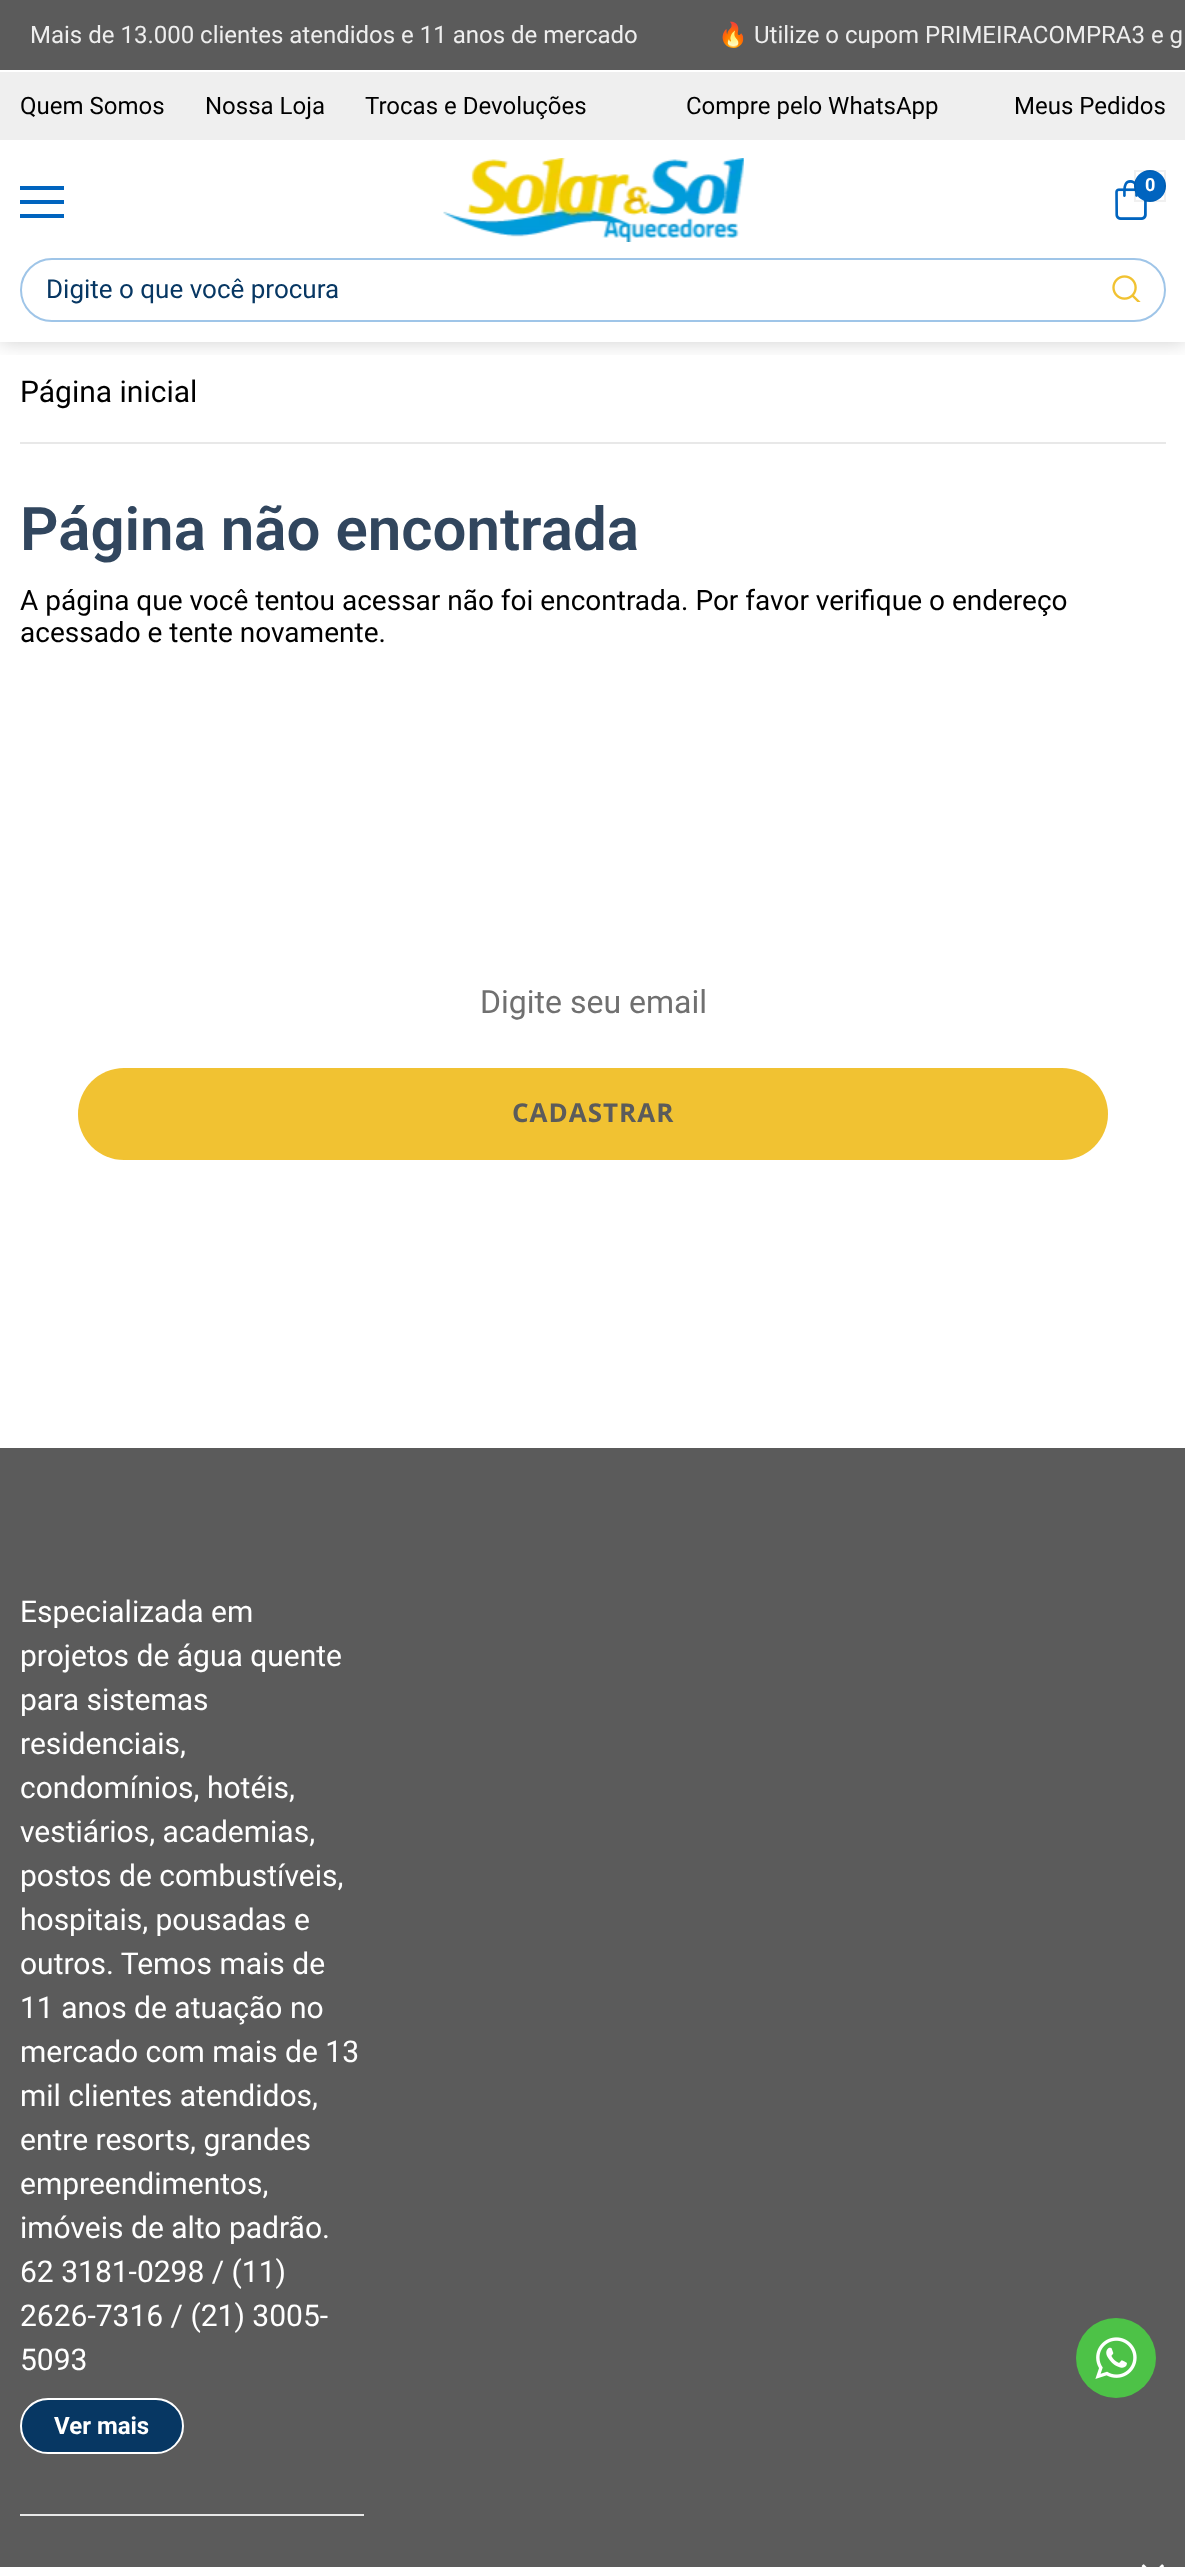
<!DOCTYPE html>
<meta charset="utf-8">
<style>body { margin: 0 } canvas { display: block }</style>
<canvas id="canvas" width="1185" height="2567"></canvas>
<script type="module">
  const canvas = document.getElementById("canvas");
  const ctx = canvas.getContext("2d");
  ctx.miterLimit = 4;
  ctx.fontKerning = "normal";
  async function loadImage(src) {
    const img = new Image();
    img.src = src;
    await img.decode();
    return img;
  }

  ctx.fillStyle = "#ffffff";
  ctx.fillRect(0, 0, 1185, 2567);
  ctx.fillStyle = "#5b5b5b";
  ctx.fillRect(0, 0, 1185, 70);
  ctx.font = "24px Roboto";
  ctx.fillStyle = "#eeeeee";
  ctx.fillText("Mais de 13.000 clientes atendidos e 11 anos de mercado", 30, 43);
  ctx.font = "24px Noto Color Emoji";
  ctx.fillText("🔥", 718, 43);
  ctx.font = "24px Roboto";
  ctx.fillText("Utilize o cupom PRIMEIRACOMPRA3 e g", 754, 43);
  ctx.save();
  ctx.beginPath();
  ctx.rect(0, 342, 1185, 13);
  ctx.clip();
  ctx.fillStyle = "rgba(0, 0, 0, 0.19)";
  ctx.filter = "blur(10px)";
  ctx.beginPath();
  ctx.rect(0, 142, 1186, 200);
  ctx.fill();
  ctx.filter = "none";
  ctx.restore();
  ctx.fillStyle = "#efefef";
  ctx.fillRect(0, 72, 1185, 68);
  ctx.fillStyle = "#ffffff";
  ctx.fillRect(0, 140, 1185, 2);
  ctx.fillStyle = "#000000";
  ctx.fillText("Quem Somos", 20, 114);
  ctx.fillText("Nossa Loja", 205, 114);
  ctx.fillText("Trocas e Devoluções", 365, 114);
  ctx.fillText("Compre pelo WhatsApp", 686, 114);
  ctx.fillText("Meus Pedidos", 1014, 114);
  ctx.fillStyle = "#0064bf";
  ctx.fillRect(20, 186, 44, 4);
  ctx.fillRect(20, 200, 44, 4);
  ctx.fillRect(20, 214, 44, 4);
  ctx.drawImage(await loadImage("img1.png"), 443, 158, 301, 84);
  ctx.drawImage(await loadImage("img2.png"), 1115, 180, 32, 40);
  ctx.beginPath();
  ctx.arc(1150, 186, 16, 0, Math.PI * 2);
  ctx.fill();
  ctx.strokeStyle = "rgba(0, 0, 0, 0.06)";
  ctx.lineWidth = 2;
  ctx.strokeRect(1135, 171, 30, 30);
  ctx.font = "bold 18px Roboto";
  ctx.fillStyle = "#ffffff";
  ctx.fillText("0", 1145, 191);
  ctx.beginPath();
  ctx.roundRect(21, 259, 1144, 62, 31);
  ctx.strokeStyle = "#9fc5e8";
  ctx.stroke();
  ctx.font = "26px Roboto";
  ctx.fillStyle = "#073763";
  ctx.fillText("Digite o que você procura", 46, 298);
  ctx.drawImage(await loadImage("img3.png"), 1112, 275, 29, 27);
  ctx.fillStyle = "#e8e8e8";
  ctx.fillRect(20, 442, 1146, 2);
  ctx.font = "30px Roboto";
  ctx.fillStyle = "#000000";
  ctx.fillText("Página inicial", 20, 402);
  ctx.font = "600 60px Roboto";
  ctx.fillStyle = "#31465e";
  ctx.fillText("Página não encontrada", 20, 550);
  ctx.font = "28px Roboto";
  ctx.fillStyle = "#000000";
  ctx.fillText("A página que você tentou acessar não foi encontrada. Por favor verifique o endereço", 20, 610);
  ctx.fillText("acessado e tente novamente.", 20, 642);
  ctx.font = "32px Roboto";
  ctx.fillStyle = "#707070";
  ctx.fillText("Digite seu email", 480, 1013);
  ctx.fillStyle = "#f1c232";
  ctx.beginPath();
  ctx.roundRect(78, 1068, 1030, 92, 46);
  ctx.fill();
  ctx.letterSpacing = "1px";
  ctx.font = "bold 26px Open Sans";
  ctx.fillStyle = "#5b5b5b";
  ctx.fillText("CADASTRAR", 512, 1122);
  ctx.fillRect(0, 1448, 1185, 1119);
  ctx.fillStyle = "#e8e8e8";
  ctx.fillRect(20, 2514, 344, 2);
  ctx.letterSpacing = "0px";
  ctx.font = "30px Roboto";
  ctx.fillStyle = "#ffffff";
  ctx.fillText("Especializada em", 20, 1622);
  ctx.fillText("projetos de água quente", 20, 1666);
  ctx.fillText("para sistemas", 20, 1710);
  ctx.fillText("residenciais,", 20, 1754);
  ctx.fillText("condomínios, hotéis,", 20, 1798);
  ctx.fillText("vestiários, academias,", 20, 1842);
  ctx.fillText("postos de combustíveis,", 20, 1886);
  ctx.fillText("hospitais, pousadas e", 20, 1930);
  ctx.fillText("outros. Temos mais de", 20, 1974);
  ctx.fillText("11 anos de atuação no", 20, 2018);
  ctx.fillText("mercado com mais de 13", 20, 2062);
  ctx.fillText("mil clientes atendidos,", 20, 2106);
  ctx.fillText("entre resorts, grandes", 20, 2150);
  ctx.fillText("empreendimentos,", 20, 2194);
  ctx.fillText("imóveis de alto padrão.", 20, 2238);
  ctx.fillText("62 3181-0298 / (11)", 20, 2282);
  ctx.fillText("2626-7316 / (21) 3005-", 20, 2326);
  ctx.fillText("5093", 20, 2370);
  ctx.fillStyle = "#073763";
  ctx.beginPath();
  ctx.roundRect(21, 2399, 162, 54, 27);
  ctx.fill();
  ctx.strokeStyle = "#ffffff";
  ctx.stroke();
  ctx.font = "bold 24px Roboto";
  ctx.fillStyle = "#ffffff";
  ctx.fillText("Ver mais", 54, 2434);
  ctx.drawImage(await loadImage("img4.png"), 1141, 2564, 23, 3);
  ctx.fillStyle = "#4dc247";
  ctx.beginPath();
  ctx.arc(1116, 2358, 40, 0, Math.PI * 2);
  ctx.fill();
  ctx.drawImage(await loadImage("img5.png"), 1095, 2337, 42, 42);
</script>
